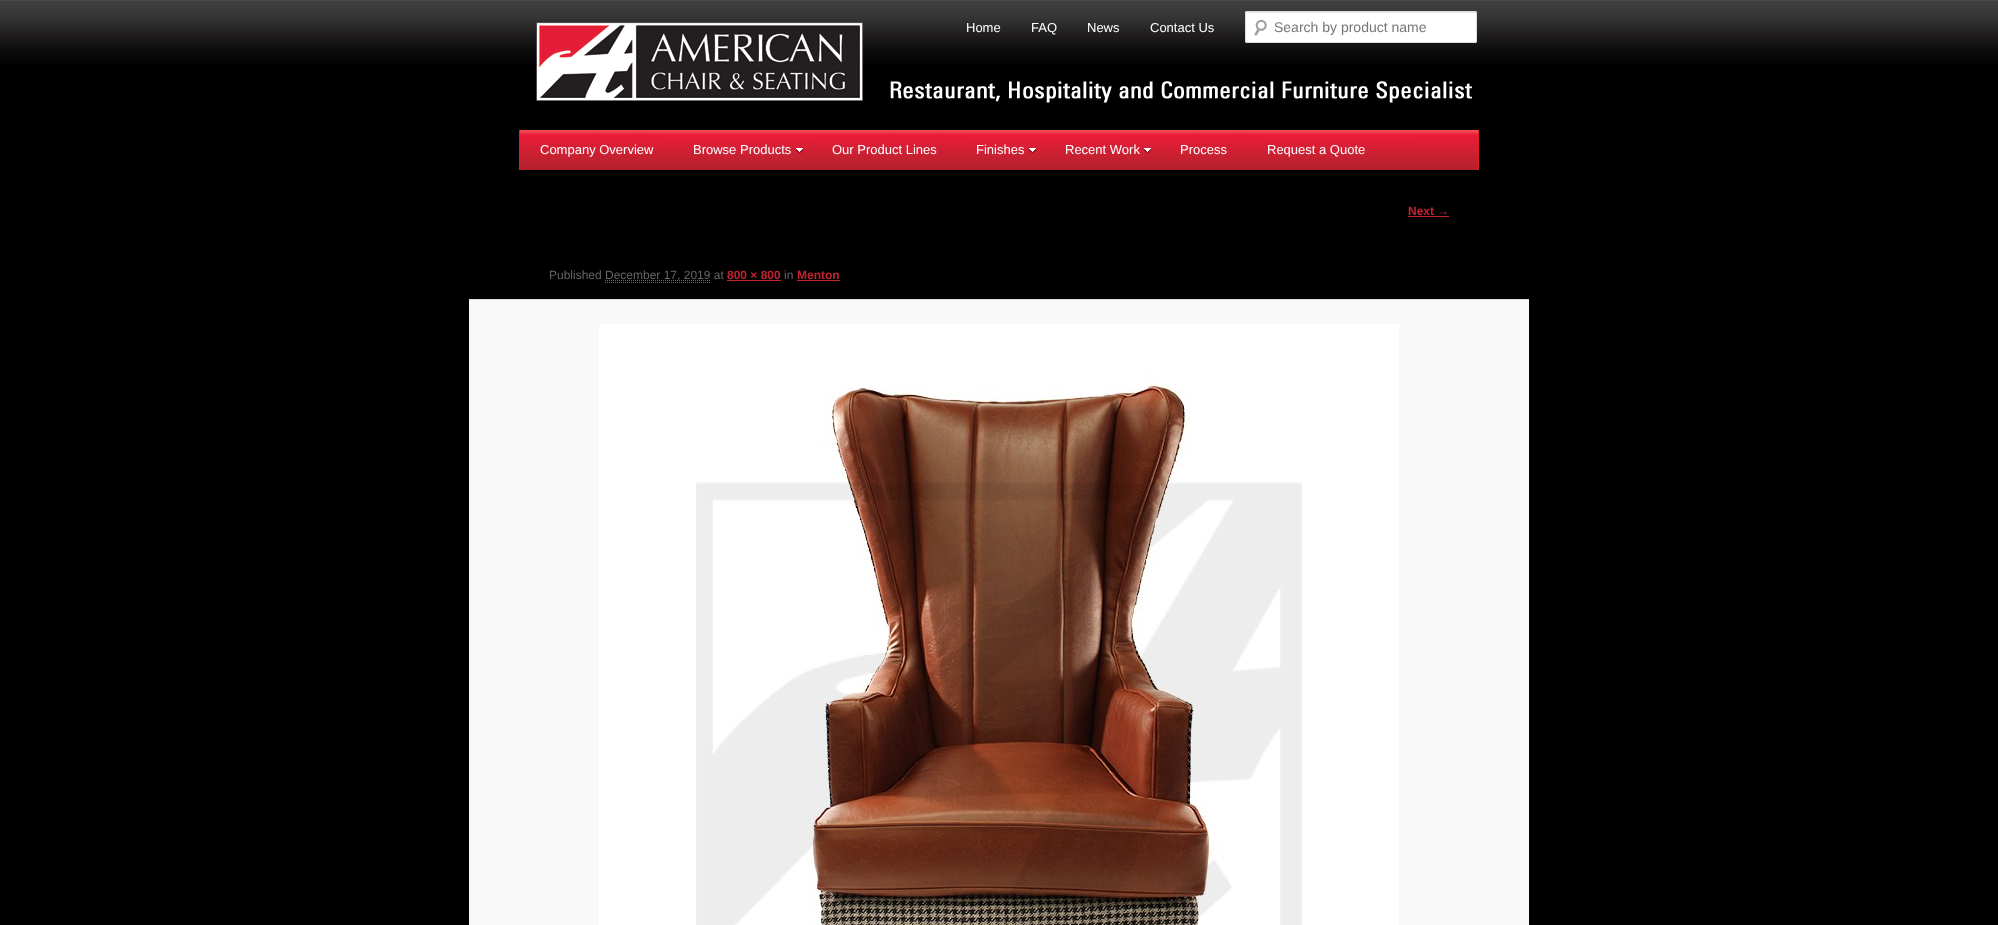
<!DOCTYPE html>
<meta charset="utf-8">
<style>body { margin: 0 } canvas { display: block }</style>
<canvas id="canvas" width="1998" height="925"></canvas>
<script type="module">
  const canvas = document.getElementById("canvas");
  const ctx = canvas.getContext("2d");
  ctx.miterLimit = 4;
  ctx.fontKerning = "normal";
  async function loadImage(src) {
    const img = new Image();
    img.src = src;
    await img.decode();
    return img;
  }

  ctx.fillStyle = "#000000";
  ctx.fillRect(0, 0, 1998, 925);
  ctx.drawImage(await loadImage("img1.png"), 0, 0, 1998, 64);
  ctx.drawImage(await loadImage("img2.png"), 890, 81, 582, 22);
  ctx.drawImage(await loadImage("img3.png"), 536, 22, 327, 79);
  ctx.font = "13px Liberation Sans";
  ctx.fillStyle = "#ffffff";
  ctx.fillText("Home", 966, 32);
  ctx.fillText("FAQ", 1031, 32);
  ctx.fillText("News", 1087, 32);
  ctx.fillText("Contact Us", 1150, 32);
  ctx.beginPath();
  ctx.roundRect(1245, 11, 232, 32, 2);
  ctx.fill();
  ctx.drawImage(await loadImage("img4.png"), 1254, 19, 13, 17);
  ctx.fillStyle = "#e6e6e6";
  ctx.beginPath();
  ctx.moveTo(1247, 12);
  ctx.lineTo(1246, 13);
  ctx.lineTo(1475, 13);
  ctx.lineTo(1476, 14);
  ctx.bezierCurveTo(1476, 14, 1476, 12, 1475, 12);
  ctx.closePath();
  ctx.fill();
  ctx.beginPath();
  ctx.roundRect(1245.5, 11.5, 231, 31, 1.5);
  ctx.strokeStyle = "#dddddd";
  ctx.stroke();
  ctx.font = "14px Liberation Sans";
  ctx.fillStyle = "#757575";
  ctx.fillText("Search by product name", 1274, 32);
  ctx.drawImage(await loadImage("img5.png"), 520, 130, 958, 40);
  ctx.fillStyle = "#e41e1f";
  ctx.fillRect(1478, 130, 1, 40);
  ctx.fillRect(519, 130, 1, 40);
  ctx.font = "13px Liberation Sans";
  ctx.fillStyle = "#ffffff";
  ctx.fillText("Company Overview", 540, 154);
  ctx.fillText("Browse Products", 693, 154);
  ctx.drawImage(await loadImage("img6.png"), 796, 148, 8, 6);
  ctx.fillText("Our Product Lines", 832, 154);
  ctx.fillText("Finishes", 976, 154);
  ctx.drawImage(await loadImage("img7.png"), 1029, 148, 8, 6);
  ctx.fillText("Recent Work", 1065, 154);
  ctx.drawImage(await loadImage("img8.png"), 1144, 148, 8, 6);
  ctx.fillText("Process", 1180, 154);
  ctx.fillText("Request a Quote", 1267, 154);
  ctx.font = "bold 12px Liberation Sans";
  ctx.fillStyle = "#c32231";
  ctx.fillText("Next →", 1408, 215);
  ctx.fillRect(1408, 216, 41, 1);
  ctx.font = "12px Liberation Sans";
  ctx.fillStyle = "#666666";
  ctx.fillText("Published", 549, 279);
  ctx.beginPath();
  ctx.moveTo(605, 280.5);
  ctx.lineTo(710.5, 280.5);
  ctx.strokeStyle = "#666666";
  ctx.setLineDash([1, 1]);
  ctx.stroke();
  ctx.fillText("December 17, 2019 at", 605, 279);
  ctx.beginPath();
  ctx.moveTo(605, 282.5);
  ctx.lineTo(710, 282.5);
  ctx.stroke();
  ctx.font = "bold 12px Liberation Sans";
  ctx.fillStyle = "#c32231";
  ctx.fillText("800 × 800", 727, 279);
  ctx.fillRect(727, 280, 54, 1);
  ctx.font = "12px Liberation Sans";
  ctx.fillStyle = "#666666";
  ctx.fillText("in", 784, 279);
  ctx.font = "bold 12px Liberation Sans";
  ctx.fillStyle = "#c32231";
  ctx.fillText("Menton", 797, 279);
  ctx.fillRect(797, 280, 43, 1);
  ctx.fillStyle = "#f9f9f9";
  ctx.fillRect(469, 300, 1060, 625);
  ctx.fillStyle = "#dddddd";
  ctx.fillRect(469, 299, 1060, 1);
  ctx.drawImage(await loadImage("img9.png"), 599, 324, 800, 601);
</script>
